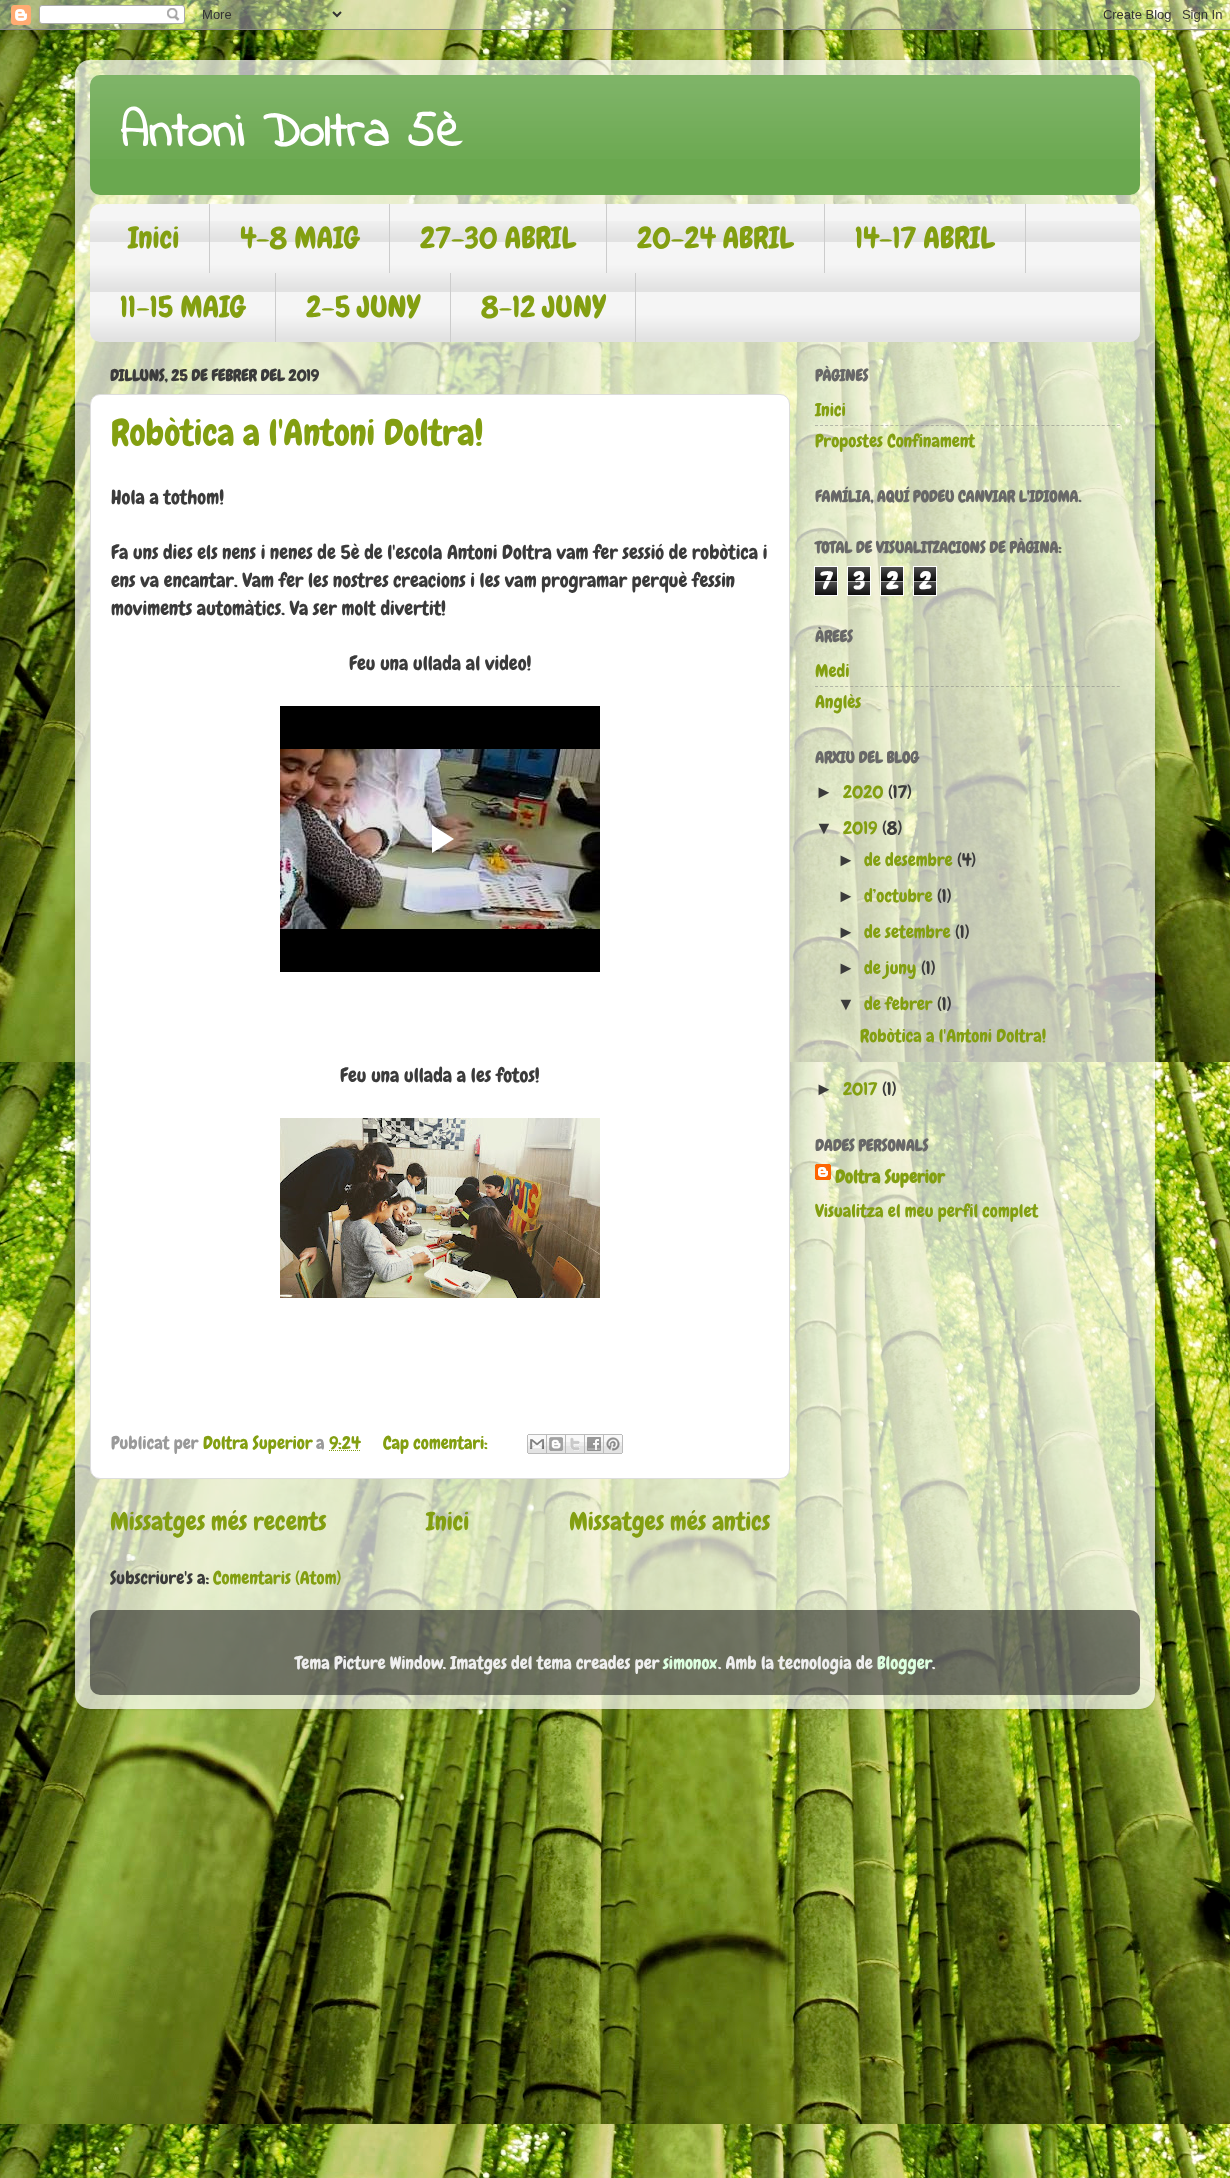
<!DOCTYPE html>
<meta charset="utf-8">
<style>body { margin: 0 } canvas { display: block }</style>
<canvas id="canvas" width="1230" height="2178"></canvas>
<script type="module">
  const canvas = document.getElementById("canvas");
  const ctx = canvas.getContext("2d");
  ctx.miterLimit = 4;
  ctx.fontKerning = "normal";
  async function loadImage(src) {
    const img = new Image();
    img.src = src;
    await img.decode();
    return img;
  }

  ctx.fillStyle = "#ffffff";
  ctx.fillRect(0, 0, 1230, 2178);
  ctx.drawImage(await loadImage("img1.png"), 0, 0, 1230, 2178);
  ctx.drawImage(await loadImage("img2.png"), 0, 0, 1230, 30);
  ctx.save();
  ctx.beginPath();
  ctx.moveTo(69, 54);
  ctx.lineTo(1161, 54);
  ctx.lineTo(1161, 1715);
  ctx.lineTo(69, 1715);
  ctx.closePath();
  ctx.moveTo(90, 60);
  ctx.lineTo(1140, 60);
  ctx.bezierCurveTo(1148.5, 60, 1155, 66.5, 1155, 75);
  ctx.lineTo(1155, 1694);
  ctx.bezierCurveTo(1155, 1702.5, 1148.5, 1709, 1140, 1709);
  ctx.lineTo(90, 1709);
  ctx.bezierCurveTo(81.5, 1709, 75, 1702.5, 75, 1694);
  ctx.lineTo(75, 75);
  ctx.bezierCurveTo(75, 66.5, 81.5, 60, 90, 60);
  ctx.closePath();
  ctx.clip("evenodd");
  ctx.fillStyle = "rgba(0, 0, 0, 0.15)";
  ctx.filter = "blur(1.5px)";
  ctx.beginPath();
  ctx.roundRect(75, 60, 1080, 1649, 15);
  ctx.fill();
  ctx.filter = "none";
  ctx.restore();
  ctx.drawImage(await loadImage("img3.png"), 75, 60, 1080, 1649);
  ctx.fillStyle = "#6aa84f";
  ctx.beginPath();
  ctx.roundRect(90, 75, 1050, 120, 10);
  ctx.fill();
  ctx.drawImage(await loadImage("img4.png"), 90, 75, 1050, 84);
  ctx.font = "bold 50px Indie Flower";
  ctx.fillStyle = "#ffffff";
  ctx.fillText("Antoni Doltra 5è", 120, 146);
  ctx.fillStyle = "#f5f5f5";
  ctx.beginPath();
  ctx.roundRect(90, 204, 1050, 138, 10);
  ctx.fill();
  ctx.drawImage(await loadImage("img5.png"), 90, 221, 1050, 121);
  ctx.fillStyle = "#cccccc";
  ctx.fillRect(209, 204, 1, 69);
  ctx.font = "30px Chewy";
  ctx.fillStyle = "#839f11";
  ctx.fillText("Inici", 128, 248);
  ctx.fillStyle = "#cccccc";
  ctx.fillRect(389, 204, 1, 69);
  ctx.fillStyle = "#839f11";
  ctx.fillText("4-8 MAIG", 240, 248);
  ctx.fillStyle = "#cccccc";
  ctx.fillRect(606, 204, 1, 69);
  ctx.fillStyle = "#839f11";
  ctx.fillText("27-30 ABRIL", 420, 248);
  ctx.fillStyle = "#cccccc";
  ctx.fillRect(824, 204, 1, 69);
  ctx.fillStyle = "#839f11";
  ctx.fillText("20-24 ABRIL", 637, 248);
  ctx.fillStyle = "#cccccc";
  ctx.fillRect(1025, 204, 1, 69);
  ctx.fillStyle = "#839f11";
  ctx.fillText("14-17 ABRIL", 855, 248);
  ctx.fillStyle = "#cccccc";
  ctx.fillRect(275, 273, 1, 69);
  ctx.fillStyle = "#839f11";
  ctx.fillText("11-15 MAIG", 120, 317);
  ctx.fillStyle = "#cccccc";
  ctx.fillRect(450, 273, 1, 69);
  ctx.fillStyle = "#839f11";
  ctx.fillText("2-5 JUNY", 306, 317);
  ctx.fillStyle = "#cccccc";
  ctx.fillRect(635, 273, 1, 69);
  ctx.fillStyle = "#839f11";
  ctx.fillText("8-12 JUNY", 481, 317);
  ctx.font = "bold 16px Chewy";
  ctx.fillStyle = "#3b3b3b";
  ctx.fillText("DILLUNS, 25 DE FEBRER DEL 2019", 110, 381);
  ctx.fillStyle = "#ffffff";
  ctx.beginPath();
  ctx.roundRect(90.5, 394.5, 699, 1084, 9.5);
  ctx.fill();
  ctx.strokeStyle = "#dddddd";
  ctx.stroke();
  ctx.font = "36px Chewy";
  ctx.fillStyle = "#839f11";
  ctx.fillText("Robòtica a l'Antoni Doltra!", 111, 445);
  ctx.font = "19.8px Chewy";
  ctx.fillStyle = "#3b3b3b";
  ctx.fillText("Hola a tothom!", 111, 504);
  ctx.fillText("Fa uns dies els nens i nenes de 5è de l'escola Antoni Doltra vam fer sessió de robòtica i", 111, 559);
  ctx.fillText("ens va encantar. Vam fer les nostres creacions i les vam programar perquè fessin", 111, 587);
  ctx.fillText("moviments automàtics. Va ser molt divertit!", 111, 615);
  ctx.fillText("Feu una ullada al video!", 349, 670);
  ctx.drawImage(await loadImage("img6.png"), 280, 706, 320, 266);
  ctx.fillText("Feu una ullada a les fotos!", 340, 1082);
  ctx.drawImage(await loadImage("img7.png"), 280, 1118, 320, 180);
  ctx.font = "18px Chewy";
  ctx.fillStyle = "#9a9a9a";
  ctx.fillText("Publicat per", 111, 1449);
  ctx.fillStyle = "#839f11";
  ctx.fillText("Doltra Superior", 203, 1449);
  ctx.fillStyle = "#9a9a9a";
  ctx.fillText("a", 316, 1449);
  ctx.fillStyle = "#839f11";
  ctx.fillText("9:24", 329, 1449);
  ctx.beginPath();
  ctx.moveTo(329, 1450.5);
  ctx.lineTo(360.5, 1450.5);
  ctx.strokeStyle = "#839f11";
  ctx.setLineDash([1, 1]);
  ctx.stroke();
  ctx.fillText("Cap comentari:", 383, 1449);
  ctx.drawImage(await loadImage("img8.png"), 527, 1434, 20, 20);
  ctx.drawImage(await loadImage("img9.png"), 547, 1434, 19, 20);
  ctx.drawImage(await loadImage("img10.png"), 566, 1434, 19, 20);
  ctx.drawImage(await loadImage("img11.png"), 585, 1434, 19, 20);
  ctx.drawImage(await loadImage("img12.png"), 604, 1434, 19, 20);
  ctx.font = "25.25px Chewy";
  ctx.fillText("Missatges més recents", 110, 1530);
  ctx.fillText("Inici", 426, 1530);
  ctx.fillText("Missatges més antics", 569, 1530);
  ctx.font = "18px Chewy";
  ctx.fillStyle = "#3b3b3b";
  ctx.fillText("Subscriure's a:", 110, 1584);
  ctx.fillStyle = "#839f11";
  ctx.fillText("Comentaris (Atom)", 213, 1584);
  ctx.font = "bold 16px Chewy";
  ctx.fillStyle = "#686868";
  ctx.fillText("PÀGINES", 815, 381);
  ctx.font = "18px Chewy";
  ctx.fillStyle = "#839f11";
  ctx.fillText("Inici", 815, 416);
  ctx.beginPath();
  ctx.moveTo(815, 425.5);
  ctx.lineTo(1120, 425.5);
  ctx.strokeStyle = "rgba(128, 128, 128, 0.5)";
  ctx.setLineDash([3, 2.03]);
  ctx.stroke();
  ctx.fillText("Propostes Confinament", 815, 447);
  ctx.font = "bold 16px Chewy";
  ctx.fillStyle = "#686868";
  ctx.fillText("FAMÍLIA, AQUÍ PODEU CANVIAR L'IDIOMA.", 815, 502);
  ctx.fillText("TOTAL DE VISUALITZACIONS DE PÀGINA:", 815, 553);
  ctx.drawImage(await loadImage("img13.png"), 815, 567, 22, 28);
  ctx.strokeStyle = "#ffffff";
  ctx.setLineDash([]);
  ctx.strokeRect(814.5, 566.5, 23, 29);
  ctx.font = "bold 24px Chewy";
  ctx.fillStyle = "#ffffff";
  ctx.fillText("7", 820, 589);
  ctx.fillStyle = "rgba(0, 0, 0, 0.65)";
  ctx.fillRect(815, 580, 22, 1);
  ctx.fillStyle = "rgba(255, 255, 255, 0.65)";
  ctx.fillRect(815, 581, 22, 1);
  ctx.drawImage(await loadImage("img13.png"), 848, 567, 22, 28);
  ctx.strokeRect(847.5, 566.5, 23, 29);
  ctx.fillStyle = "#ffffff";
  ctx.fillText("3", 853, 589);
  ctx.fillStyle = "rgba(0, 0, 0, 0.65)";
  ctx.fillRect(848, 580, 22, 1);
  ctx.fillStyle = "rgba(255, 255, 255, 0.65)";
  ctx.fillRect(848, 581, 22, 1);
  ctx.drawImage(await loadImage("img13.png"), 881, 567, 22, 28);
  ctx.strokeRect(880.5, 566.5, 23, 29);
  ctx.fillStyle = "#ffffff";
  ctx.fillText("2", 886, 589);
  ctx.fillStyle = "rgba(0, 0, 0, 0.65)";
  ctx.fillRect(881, 580, 22, 1);
  ctx.fillStyle = "rgba(255, 255, 255, 0.65)";
  ctx.fillRect(881, 581, 22, 1);
  ctx.drawImage(await loadImage("img13.png"), 914, 567, 22, 28);
  ctx.strokeRect(913.5, 566.5, 23, 29);
  ctx.fillStyle = "#ffffff";
  ctx.fillText("2", 919, 589);
  ctx.fillStyle = "rgba(0, 0, 0, 0.65)";
  ctx.fillRect(914, 580, 22, 1);
  ctx.fillStyle = "rgba(255, 255, 255, 0.65)";
  ctx.fillRect(914, 581, 22, 1);
  ctx.font = "bold 16px Chewy";
  ctx.fillStyle = "#686868";
  ctx.fillText("ÀREES", 815, 642);
  ctx.font = "18px Chewy";
  ctx.fillStyle = "#839f11";
  ctx.fillText("Medi", 815, 677);
  ctx.beginPath();
  ctx.moveTo(815, 686.5);
  ctx.lineTo(1120, 686.5);
  ctx.strokeStyle = "rgba(128, 128, 128, 0.5)";
  ctx.setLineDash([3, 2.03]);
  ctx.stroke();
  ctx.fillText("Anglès", 815, 708);
  ctx.font = "bold 16px Chewy";
  ctx.fillStyle = "#686868";
  ctx.fillText("ARXIU DEL BLOG", 815, 763);
  ctx.font = "18px Liberation Sans";
  ctx.fillStyle = "#3b3b3b";
  ctx.fillText("►", 815, 798);
  ctx.font = "18px Chewy";
  ctx.fillStyle = "#839f11";
  ctx.fillText("2020", 843, 798);
  ctx.fillStyle = "#3b3b3b";
  ctx.fillText("(17)", 888, 798);
  ctx.font = "18px Liberation Sans";
  ctx.fillText("▼", 815, 834);
  ctx.font = "18px Chewy";
  ctx.fillStyle = "#839f11";
  ctx.fillText("2019", 843, 834);
  ctx.fillStyle = "#3b3b3b";
  ctx.fillText("(8)", 882, 834);
  ctx.font = "18px Liberation Sans";
  ctx.fillText("►", 837, 866);
  ctx.font = "18px Chewy";
  ctx.fillStyle = "#839f11";
  ctx.fillText("de desembre", 864, 866);
  ctx.fillStyle = "#3b3b3b";
  ctx.fillText("(4)", 957, 866);
  ctx.font = "18px Liberation Sans";
  ctx.fillText("►", 837, 902);
  ctx.font = "18px Chewy";
  ctx.fillStyle = "#839f11";
  ctx.fillText("d’octubre", 864, 902);
  ctx.fillStyle = "#3b3b3b";
  ctx.fillText("(1)", 937, 902);
  ctx.font = "18px Liberation Sans";
  ctx.fillText("►", 837, 938);
  ctx.font = "18px Chewy";
  ctx.fillStyle = "#839f11";
  ctx.fillText("de setembre", 864, 938);
  ctx.fillStyle = "#3b3b3b";
  ctx.fillText("(1)", 955, 938);
  ctx.font = "18px Liberation Sans";
  ctx.fillText("►", 837, 974);
  ctx.font = "18px Chewy";
  ctx.fillStyle = "#839f11";
  ctx.fillText("de juny", 864, 974);
  ctx.fillStyle = "#3b3b3b";
  ctx.fillText("(1)", 921, 974);
  ctx.font = "18px Liberation Sans";
  ctx.fillText("▼", 837, 1010);
  ctx.font = "18px Chewy";
  ctx.fillStyle = "#839f11";
  ctx.fillText("de febrer", 864, 1010);
  ctx.fillStyle = "#3b3b3b";
  ctx.fillText("(1)", 937, 1010);
  ctx.fillStyle = "#839f11";
  ctx.fillText("Robòtica a l'Antoni Doltra!", 860, 1042);
  ctx.font = "18px Liberation Sans";
  ctx.fillStyle = "#3b3b3b";
  ctx.fillText("►", 815, 1095);
  ctx.font = "18px Chewy";
  ctx.fillStyle = "#839f11";
  ctx.fillText("2017", 843, 1095);
  ctx.fillStyle = "#3b3b3b";
  ctx.fillText("(1)", 882, 1095);
  ctx.font = "bold 16px Chewy";
  ctx.fillStyle = "#686868";
  ctx.fillText("DADES PERSONALS", 815, 1151);
  ctx.drawImage(await loadImage("img14.png"), 815, 1164, 16, 16);
  ctx.font = "bold 18px Chewy";
  ctx.fillStyle = "#839f11";
  ctx.fillText("Doltra Superior", 835, 1183);
  ctx.font = "18px Chewy";
  ctx.fillText("Visualitza el meu perfil complet", 815, 1217);
  ctx.drawImage(await loadImage("img15.png"), 90, 1610, 1050, 85);
  ctx.fillStyle = "#eeeeee";
  ctx.fillText("Tema Picture Window. Imatges del tema creades per", 295, 1669);
  ctx.fillStyle = "#ddffe0";
  ctx.fillText("simonox", 663, 1669);
  ctx.fillStyle = "#eeeeee";
  ctx.fillText(". Amb la tecnologia de", 718, 1669);
  ctx.fillStyle = "#ddffe0";
  ctx.fillText("Blogger", 877, 1669);
  ctx.fillStyle = "#eeeeee";
  ctx.fillText(".", 932, 1669);
</script>
